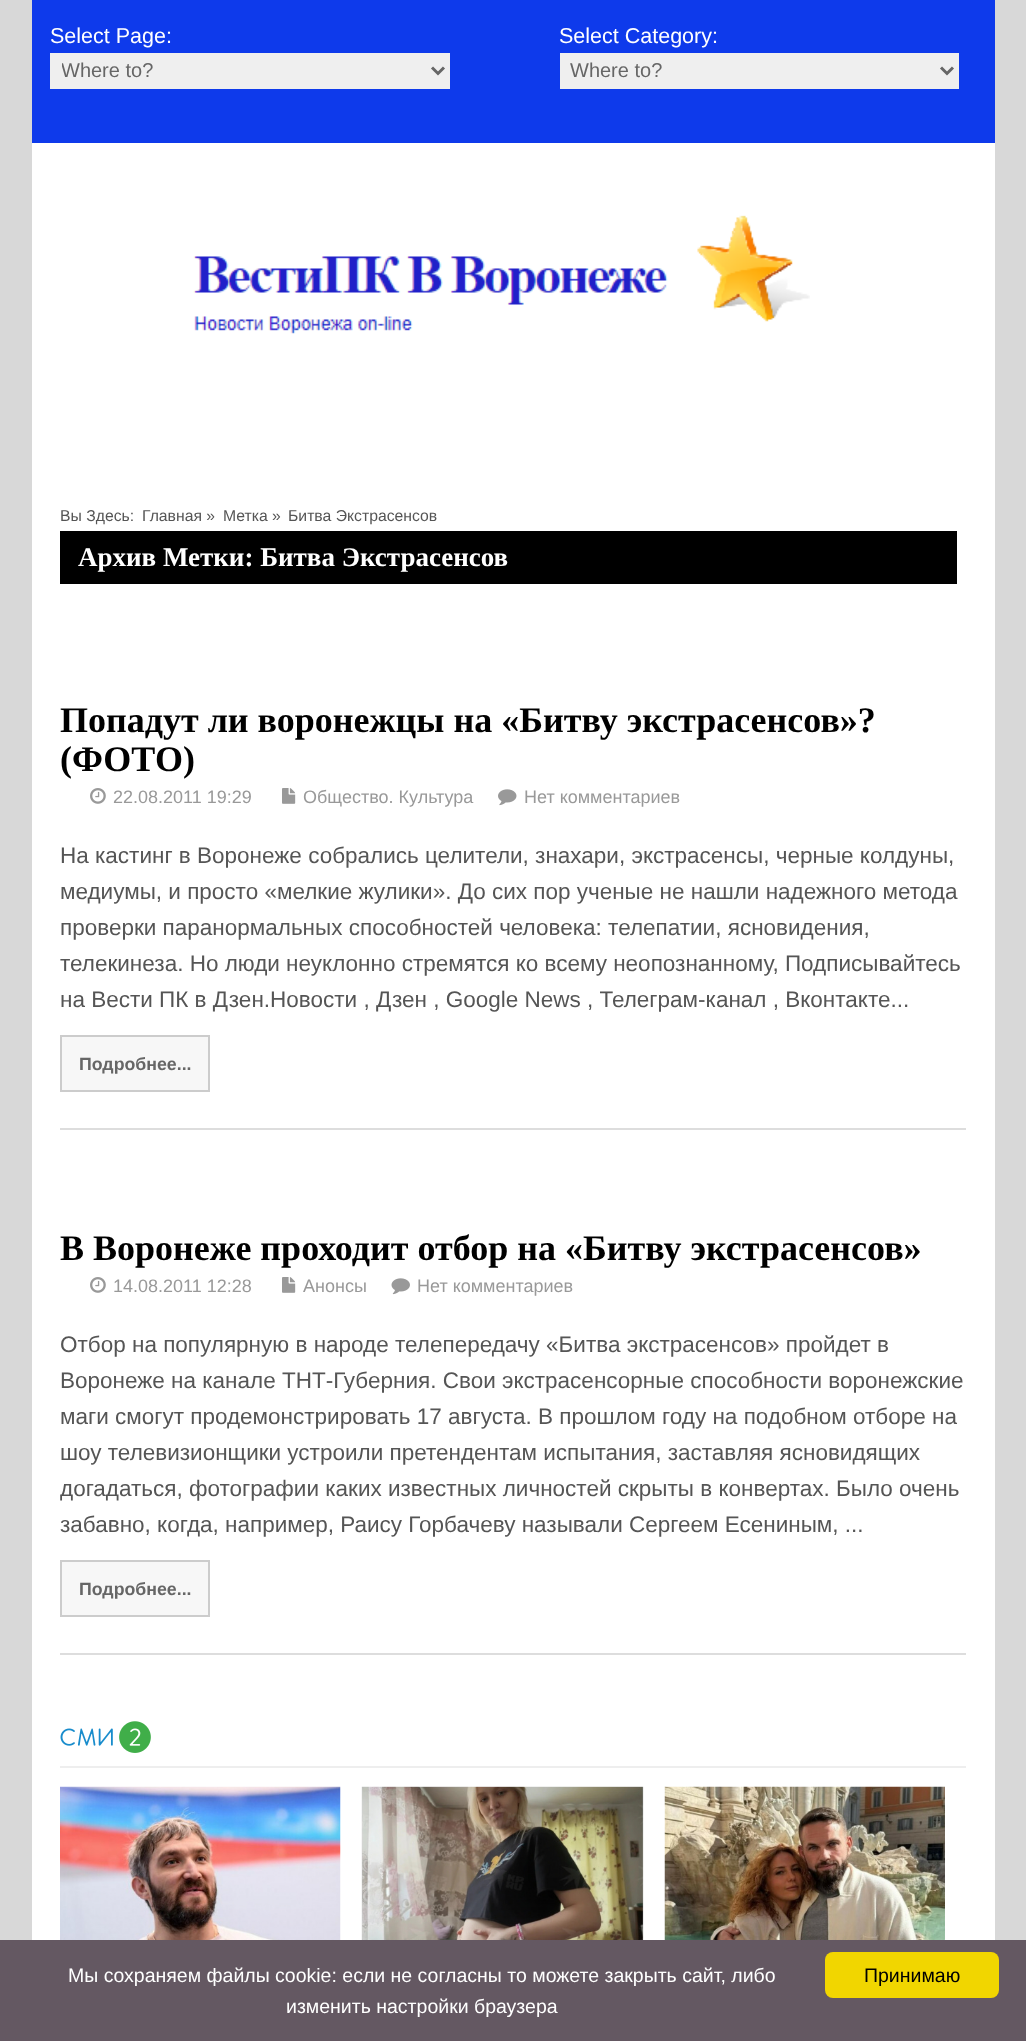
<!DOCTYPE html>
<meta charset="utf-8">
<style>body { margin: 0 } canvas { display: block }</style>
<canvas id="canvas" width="1026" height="2041"></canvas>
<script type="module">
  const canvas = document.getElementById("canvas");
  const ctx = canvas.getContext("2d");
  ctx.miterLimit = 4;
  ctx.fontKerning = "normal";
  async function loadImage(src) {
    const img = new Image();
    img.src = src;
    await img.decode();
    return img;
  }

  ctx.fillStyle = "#d8d8d8";
  ctx.fillRect(0, 0, 1026, 2041);
  ctx.fillStyle = "#0e3aeb";
  ctx.fillRect(32, 0, 963, 143);
  ctx.font = "21.5px Liberation Sans";
  ctx.fillStyle = "#ffffff";
  ctx.fillText("Select Page:", 50, 43);
  ctx.fillStyle = "#efefef";
  ctx.fillRect(50, 53, 400, 36);
  ctx.beginPath();
  ctx.moveTo(432, 67.5);
  ctx.lineTo(438, 73.5);
  ctx.lineTo(444, 67.5);
  ctx.strokeStyle = "#666666";
  ctx.lineWidth = 3;
  ctx.stroke();
  ctx.save();
  ctx.beginPath();
  ctx.rect(62, 59, 360, 25);
  ctx.clip();
  ctx.font = "20px Liberation Sans";
  ctx.fillStyle = "#666666";
  ctx.fillText("Where to?", 61, 77);
  ctx.restore();
  ctx.fillStyle = "#ffffff";
  ctx.fillText("Select Category:", 559, 43);
  ctx.fillStyle = "#efefef";
  ctx.fillRect(560, 53, 399, 36);
  ctx.beginPath();
  ctx.moveTo(941, 67.5);
  ctx.lineTo(947, 73.5);
  ctx.lineTo(953, 67.5);
  ctx.stroke();
  ctx.font = "20px Liberation Sans";
  ctx.fillStyle = "#666666";
  ctx.fillText("Where to?", 570, 77);
  ctx.fillStyle = "#ffffff";
  ctx.fillRect(32, 143, 963, 1797);
  ctx.drawImage(await loadImage("img1.png"), 193, 215, 617, 119);
  ctx.font = "15.75px Liberation Sans";
  ctx.fillStyle = "#555555";
  ctx.fillText("Вы Здесь:", 60, 521);
  ctx.fillText("Главная »", 142, 521);
  ctx.fillText("Метка »", 223, 521);
  ctx.fillText("Битва Экстрасенсов", 288, 521);
  ctx.fillStyle = "#000000";
  ctx.fillRect(60, 531, 897, 53);
  ctx.font = "bold 27px Liberation Serif";
  ctx.fillStyle = "#ffffff";
  ctx.fillText("Архив Метки: Битва Экстрасенсов", 78, 566);
  ctx.fillStyle = "#dddddd";
  ctx.fillRect(60, 1128, 906, 2);
  ctx.font = "bold 36px Liberation Serif";
  ctx.fillStyle = "#000000";
  ctx.fillText("Попадут ли воронежцы на «Битву экстрасенсов»?", 60, 732);
  ctx.fillText("(ФОТО)", 60, 771);
  ctx.drawImage(await loadImage("img2.png"), 90, 788, 16, 16);
  ctx.font = "18px Liberation Sans";
  ctx.fillStyle = "#999999";
  ctx.fillText("22.08.2011 19:29", 113, 803);
  ctx.drawImage(await loadImage("img3.png"), 282, 788, 14, 16);
  ctx.fillText("Общество. Культура", 303, 803);
  ctx.drawImage(await loadImage("img4.png"), 498, 789, 19, 17);
  ctx.fillText("Нет комментариев", 524, 803);
  ctx.font = "22.5px Liberation Sans";
  ctx.fillStyle = "#555555";
  ctx.fillText("На кастинг в Воронеже собрались целители, знахари, экстрасенсы, черные колдуны,", 60, 863);
  ctx.fillText("медиумы, и просто «мелкие жулики». До сих пор ученые не нашли надежного метода", 60, 899);
  ctx.fillText("проверки паранормальных способностей человека: телепатии, ясновидения,", 60, 935);
  ctx.fillText("телекинеза. Но люди неуклонно стремятся ко всему неопознанному, Подписывайтесь", 60, 971);
  ctx.fillText("на Вести ПК в Дзен.Новости , Дзен , Google News , Телеграм-канал , Вконтакте...", 60, 1007);
  ctx.fillStyle = "#f7f7f7";
  ctx.beginPath();
  ctx.rect(61, 1036, 148, 55);
  ctx.fill();
  ctx.strokeStyle = "#cccccc";
  ctx.lineWidth = 2;
  ctx.stroke();
  ctx.font = "bold 17.75px Liberation Sans";
  ctx.fillStyle = "#666666";
  ctx.fillText("Подробнее...", 79, 1070);
  ctx.fillStyle = "#dddddd";
  ctx.fillRect(60, 1653, 906, 2);
  ctx.font = "bold 36px Liberation Serif";
  ctx.fillStyle = "#000000";
  ctx.fillText("В Воронеже проходит отбор на «Битву экстрасенсов»", 60, 1260);
  ctx.drawImage(await loadImage("img2.png"), 90, 1277, 16, 16);
  ctx.font = "18px Liberation Sans";
  ctx.fillStyle = "#999999";
  ctx.fillText("14.08.2011 12:28", 113, 1292);
  ctx.drawImage(await loadImage("img3.png"), 282, 1277, 14, 16);
  ctx.fillText("Анонсы", 303, 1292);
  ctx.drawImage(await loadImage("img5.png"), 391, 1278, 19, 17);
  ctx.fillText("Нет комментариев", 417, 1292);
  ctx.font = "22.5px Liberation Sans";
  ctx.fillStyle = "#555555";
  ctx.fillText("Отбор на популярную в народе телепередачу «Битва экстрасенсов» пройдет в", 60, 1352);
  ctx.fillText("Воронеже на канале ТНТ-Губерния. Свои экстрасенсорные способности воронежские", 60, 1388);
  ctx.fillText("маги смогут продемонстрировать 17 августа. В прошлом году на подобном отборе на", 60, 1424);
  ctx.fillText("шоу телевизионщики устроили претендентам испытания, заставляя ясновидящих", 60, 1460);
  ctx.fillText("догадаться, фотографии каких известных личностей скрыты в конвертах. Было очень", 60, 1496);
  ctx.fillText("забавно, когда, например, Раису Горбачеву называли Сергеем Есениным, ...", 60, 1532);
  ctx.fillStyle = "#f7f7f7";
  ctx.beginPath();
  ctx.rect(61, 1561, 148, 55);
  ctx.fill();
  ctx.stroke();
  ctx.font = "bold 17.75px Liberation Sans";
  ctx.fillStyle = "#666666";
  ctx.fillText("Подробнее...", 79, 1595);
  ctx.fillStyle = "#eeeeee";
  ctx.fillRect(60, 1766, 906, 2);
  ctx.drawImage(await loadImage("img6.png"), 60, 1721, 91, 32);
  ctx.drawImage(await loadImage("img7.png"), 60, 1786, 281, 154);
  ctx.drawImage(await loadImage("img8.png"), 361, 1786, 283, 154);
  ctx.drawImage(await loadImage("img9.png"), 664, 1786, 281, 154);
  ctx.fillStyle = "#645862";
  ctx.fillRect(0, 1940, 1026, 101);
  ctx.font = "19.5px Liberation Sans";
  ctx.fillStyle = "#ffffff";
  ctx.fillText("Мы cохраняем файлы cookie: если не согласны то можете закрыть сайт, либо", 68, 1982);
  ctx.fillText("изменить настройки браузера", 286, 2013);
  ctx.fillStyle = "#f1d600";
  ctx.beginPath();
  ctx.roundRect(825, 1952, 174, 46, 8);
  ctx.fill();
  ctx.fillStyle = "#000000";
  ctx.fillText("Принимаю", 864, 1982);
</script>
